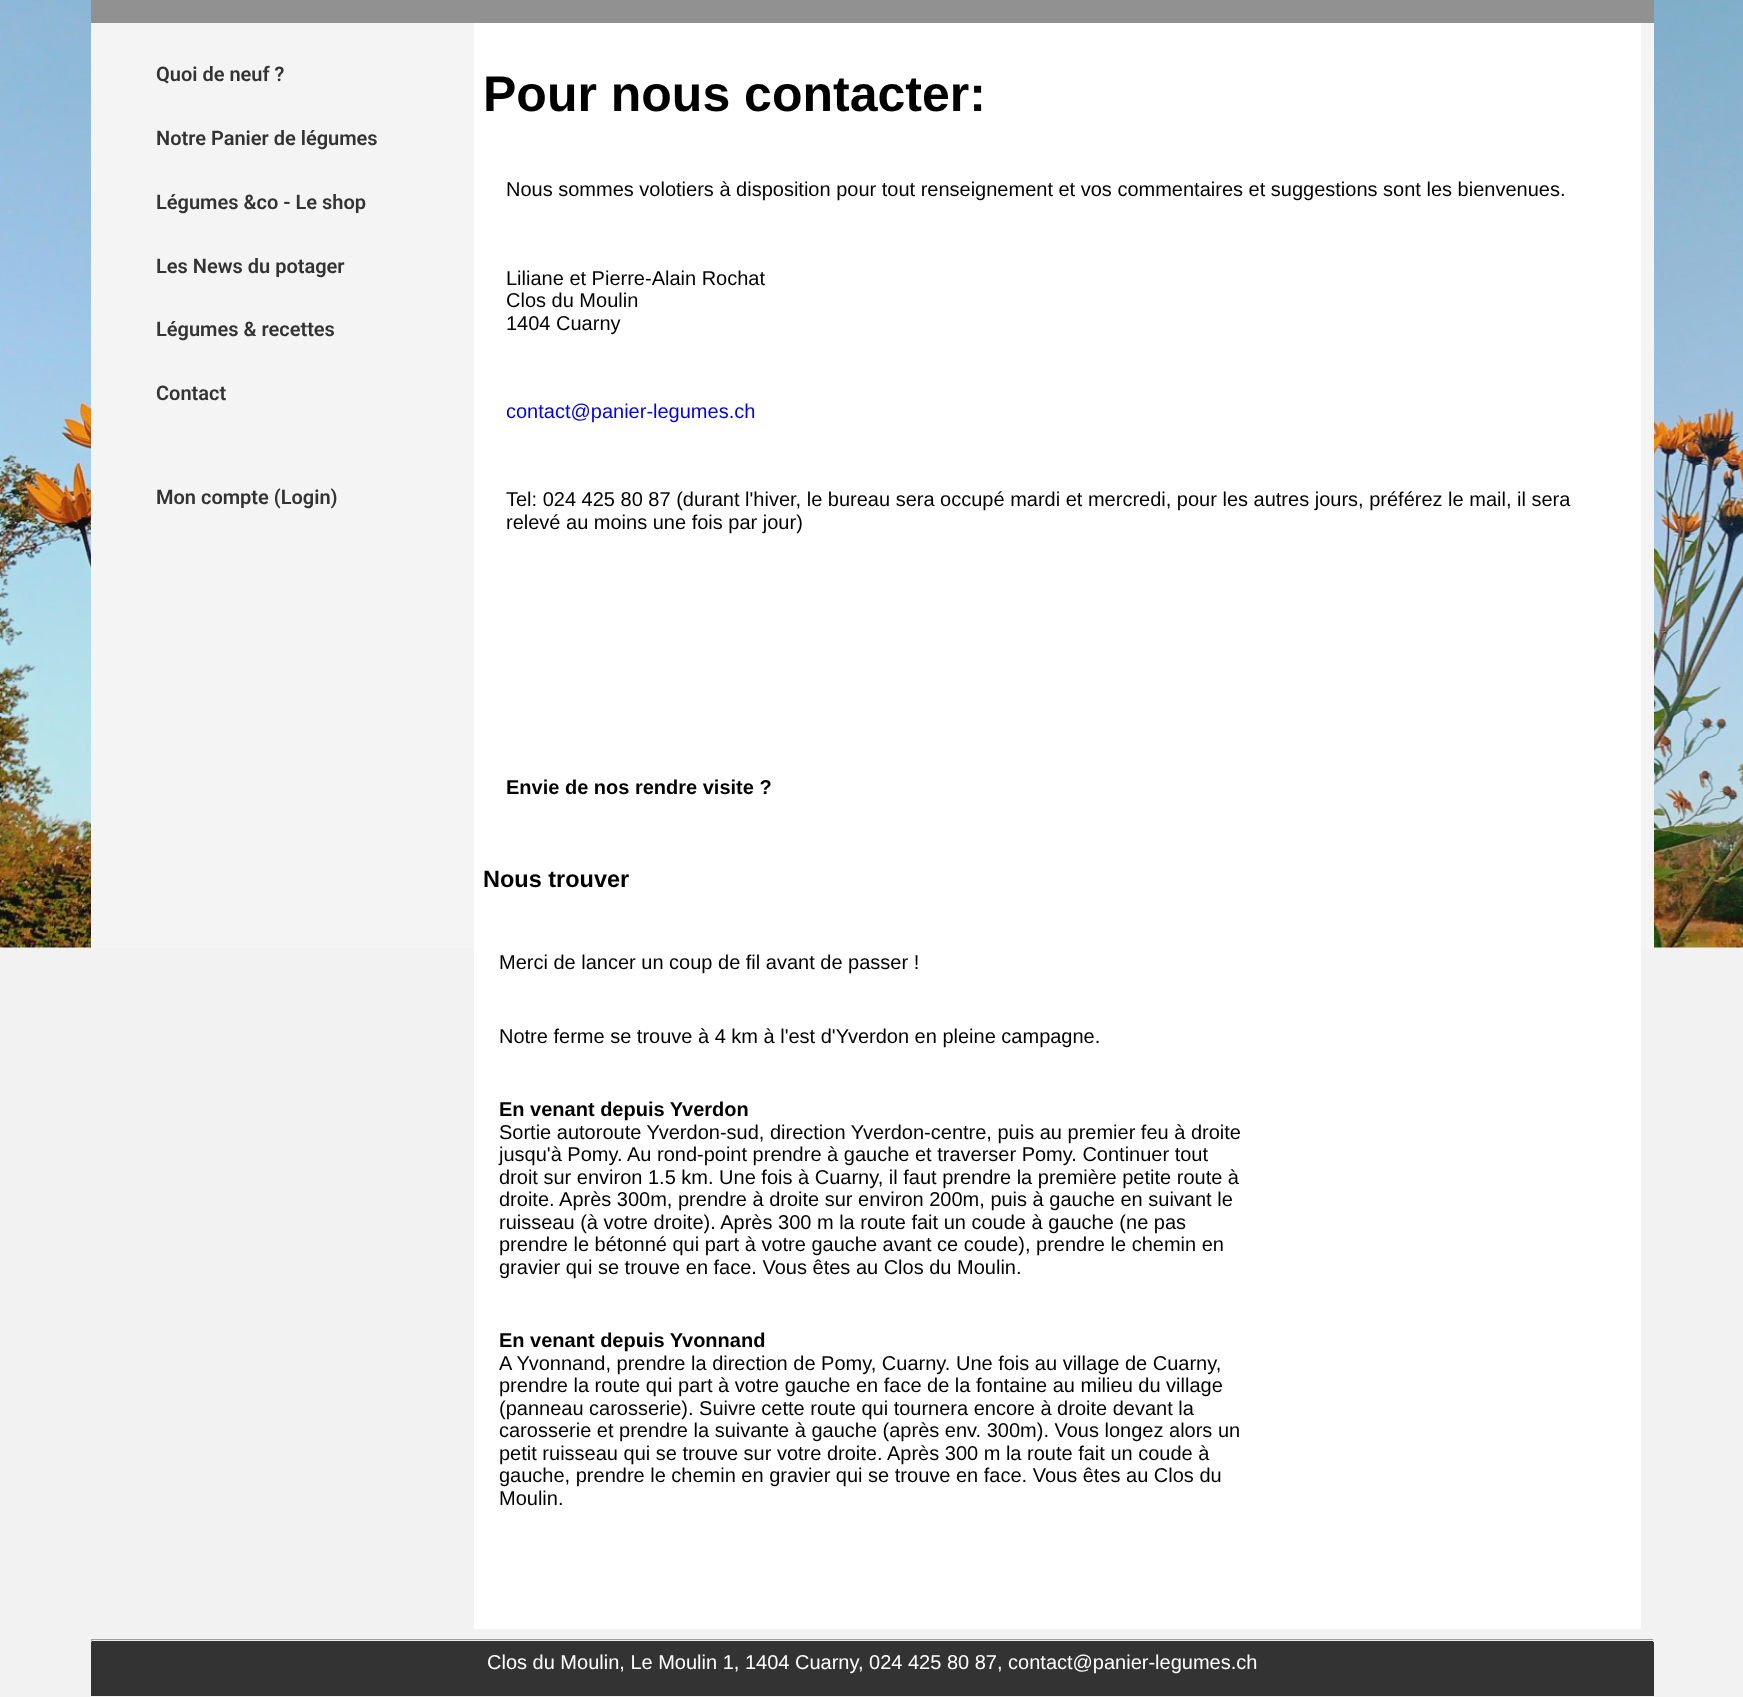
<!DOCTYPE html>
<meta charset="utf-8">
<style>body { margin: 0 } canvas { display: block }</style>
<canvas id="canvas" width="1743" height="1697"></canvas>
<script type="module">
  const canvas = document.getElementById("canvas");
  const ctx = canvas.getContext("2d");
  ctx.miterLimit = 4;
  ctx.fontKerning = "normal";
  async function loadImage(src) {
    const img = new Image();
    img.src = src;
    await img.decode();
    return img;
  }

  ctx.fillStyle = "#f2f2f2";
  ctx.fillRect(0, 0, 1743, 1697);
  ctx.drawImage(await loadImage("img1.png"), 0, 0, 1743, 948);
  ctx.fillStyle = "#919191";
  ctx.fillRect(91, 0, 1563, 23);
  ctx.fillStyle = "#f4f4f4";
  ctx.fillRect(91, 23, 383, 925);
  ctx.font = "600 20px Roboto";
  ctx.fillStyle = "#333333";
  ctx.fillText("Quoi de neuf ?", 156, 81);
  ctx.fillText("Notre Panier de légumes", 156, 145);
  ctx.fillText("Légumes &co - Le shop", 156, 209);
  ctx.fillText("Les News du potager", 156, 273);
  ctx.fillText("Légumes & recettes", 156, 336);
  ctx.fillText("Contact", 156, 400);
  ctx.fillText("Mon compte (Login)", 156, 504);
  ctx.fillStyle = "#ffffff";
  ctx.fillRect(474, 23, 1167, 1606);
  ctx.font = "bold 50px Liberation Sans";
  ctx.fillStyle = "#000000";
  ctx.fillText("Pour nous contacter:", 483, 111);
  ctx.font = "20px Liberation Sans";
  ctx.fillText("Nous sommes volotiers à disposition pour tout renseignement et vos commentaires et suggestions sont les bienvenues.", 506, 196);
  ctx.fillText("Liliane et Pierre-Alain Rochat", 506, 285);
  ctx.fillText("Clos du Moulin", 506, 307);
  ctx.fillText("1404 Cuarny", 506, 330);
  ctx.fillStyle = "#0000ee";
  ctx.fillText("contact@panier-legumes.ch", 506, 418);
  ctx.fillStyle = "#000000";
  ctx.fillText("Tel: 024 425 80 87 (durant l'hiver, le bureau sera occupé mardi et mercredi, pour les autres jours, préférez le mail, il sera", 506, 506);
  ctx.fillText("relevé au moins une fois par jour)", 506, 529);
  ctx.font = "bold 20px Liberation Sans";
  ctx.fillText("Envie de nos rendre visite ?", 506, 794);
  ctx.font = "bold 23.5px Liberation Sans";
  ctx.fillText("Nous trouver", 483, 887);
  ctx.font = "20px Liberation Sans";
  ctx.fillText("Merci de lancer un coup de fil avant de passer !", 499, 969);
  ctx.fillText("Notre ferme se trouve à 4 km à l'est d'Yverdon en pleine campagne.", 499, 1043);
  ctx.font = "bold 20px Liberation Sans";
  ctx.fillText("En venant depuis Yverdon", 499, 1116);
  ctx.font = "20px Liberation Sans";
  ctx.fillText("Sortie autoroute Yverdon-sud, direction Yverdon-centre, puis au premier feu à droite", 499, 1139);
  ctx.fillText("jusqu'à Pomy. Au rond-point prendre à gauche et traverser Pomy. Continuer tout", 499, 1161);
  ctx.fillText("droit sur environ 1.5 km. Une fois à Cuarny, il faut prendre la première petite route à", 499, 1184);
  ctx.fillText("droite. Après 300m, prendre à droite sur environ 200m, puis à gauche en suivant le", 499, 1206);
  ctx.fillText("ruisseau (à votre droite). Après 300 m la route fait un coude à gauche (ne pas", 499, 1229);
  ctx.fillText("prendre le bétonné qui part à votre gauche avant ce coude), prendre le chemin en", 499, 1251);
  ctx.fillText("gravier qui se trouve en face. Vous êtes au Clos du Moulin.", 499, 1274);
  ctx.font = "bold 20px Liberation Sans";
  ctx.fillText("En venant depuis Yvonnand", 499, 1347);
  ctx.font = "20px Liberation Sans";
  ctx.fillText("A Yvonnand, prendre la direction de Pomy, Cuarny. Une fois au village de Cuarny,", 499, 1370);
  ctx.fillText("prendre la route qui part à votre gauche en face de la fontaine au milieu du village", 499, 1392);
  ctx.fillText("(panneau carosserie). Suivre cette route qui tournera encore à droite devant la", 499, 1415);
  ctx.fillText("carosserie et prendre la suivante à gauche (après env. 300m). Vous longez alors un", 499, 1437);
  ctx.fillText("petit ruisseau qui se trouve sur votre droite. Après 300 m la route fait un coude à", 499, 1460);
  ctx.fillText("gauche, prendre le chemin en gravier qui se trouve en face. Vous êtes au Clos du", 499, 1482);
  ctx.fillText("Moulin.", 499, 1505);
  ctx.fillStyle = "#f4f4f4";
  ctx.fillRect(1641, 23, 13, 925);
  ctx.fillStyle = "#333333";
  ctx.fillRect(91, 1641, 1563, 55);
  ctx.fillStyle = "#9f9f9f";
  ctx.fillRect(91, 1639, 1563, 1);
  ctx.fillStyle = "#eeeeee";
  ctx.fillRect(1653, 1639, 1, 3);
  ctx.fillRect(91, 1640, 1563, 1);
  ctx.fillStyle = "#9f9f9f";
  ctx.fillRect(91, 1639, 1, 3);
  ctx.fillStyle = "#ffffff";
  ctx.fillText("Clos du Moulin, Le Moulin 1, 1404 Cuarny, 024 425 80 87, contact@panier-legumes.ch", 487, 1669);
</script>
